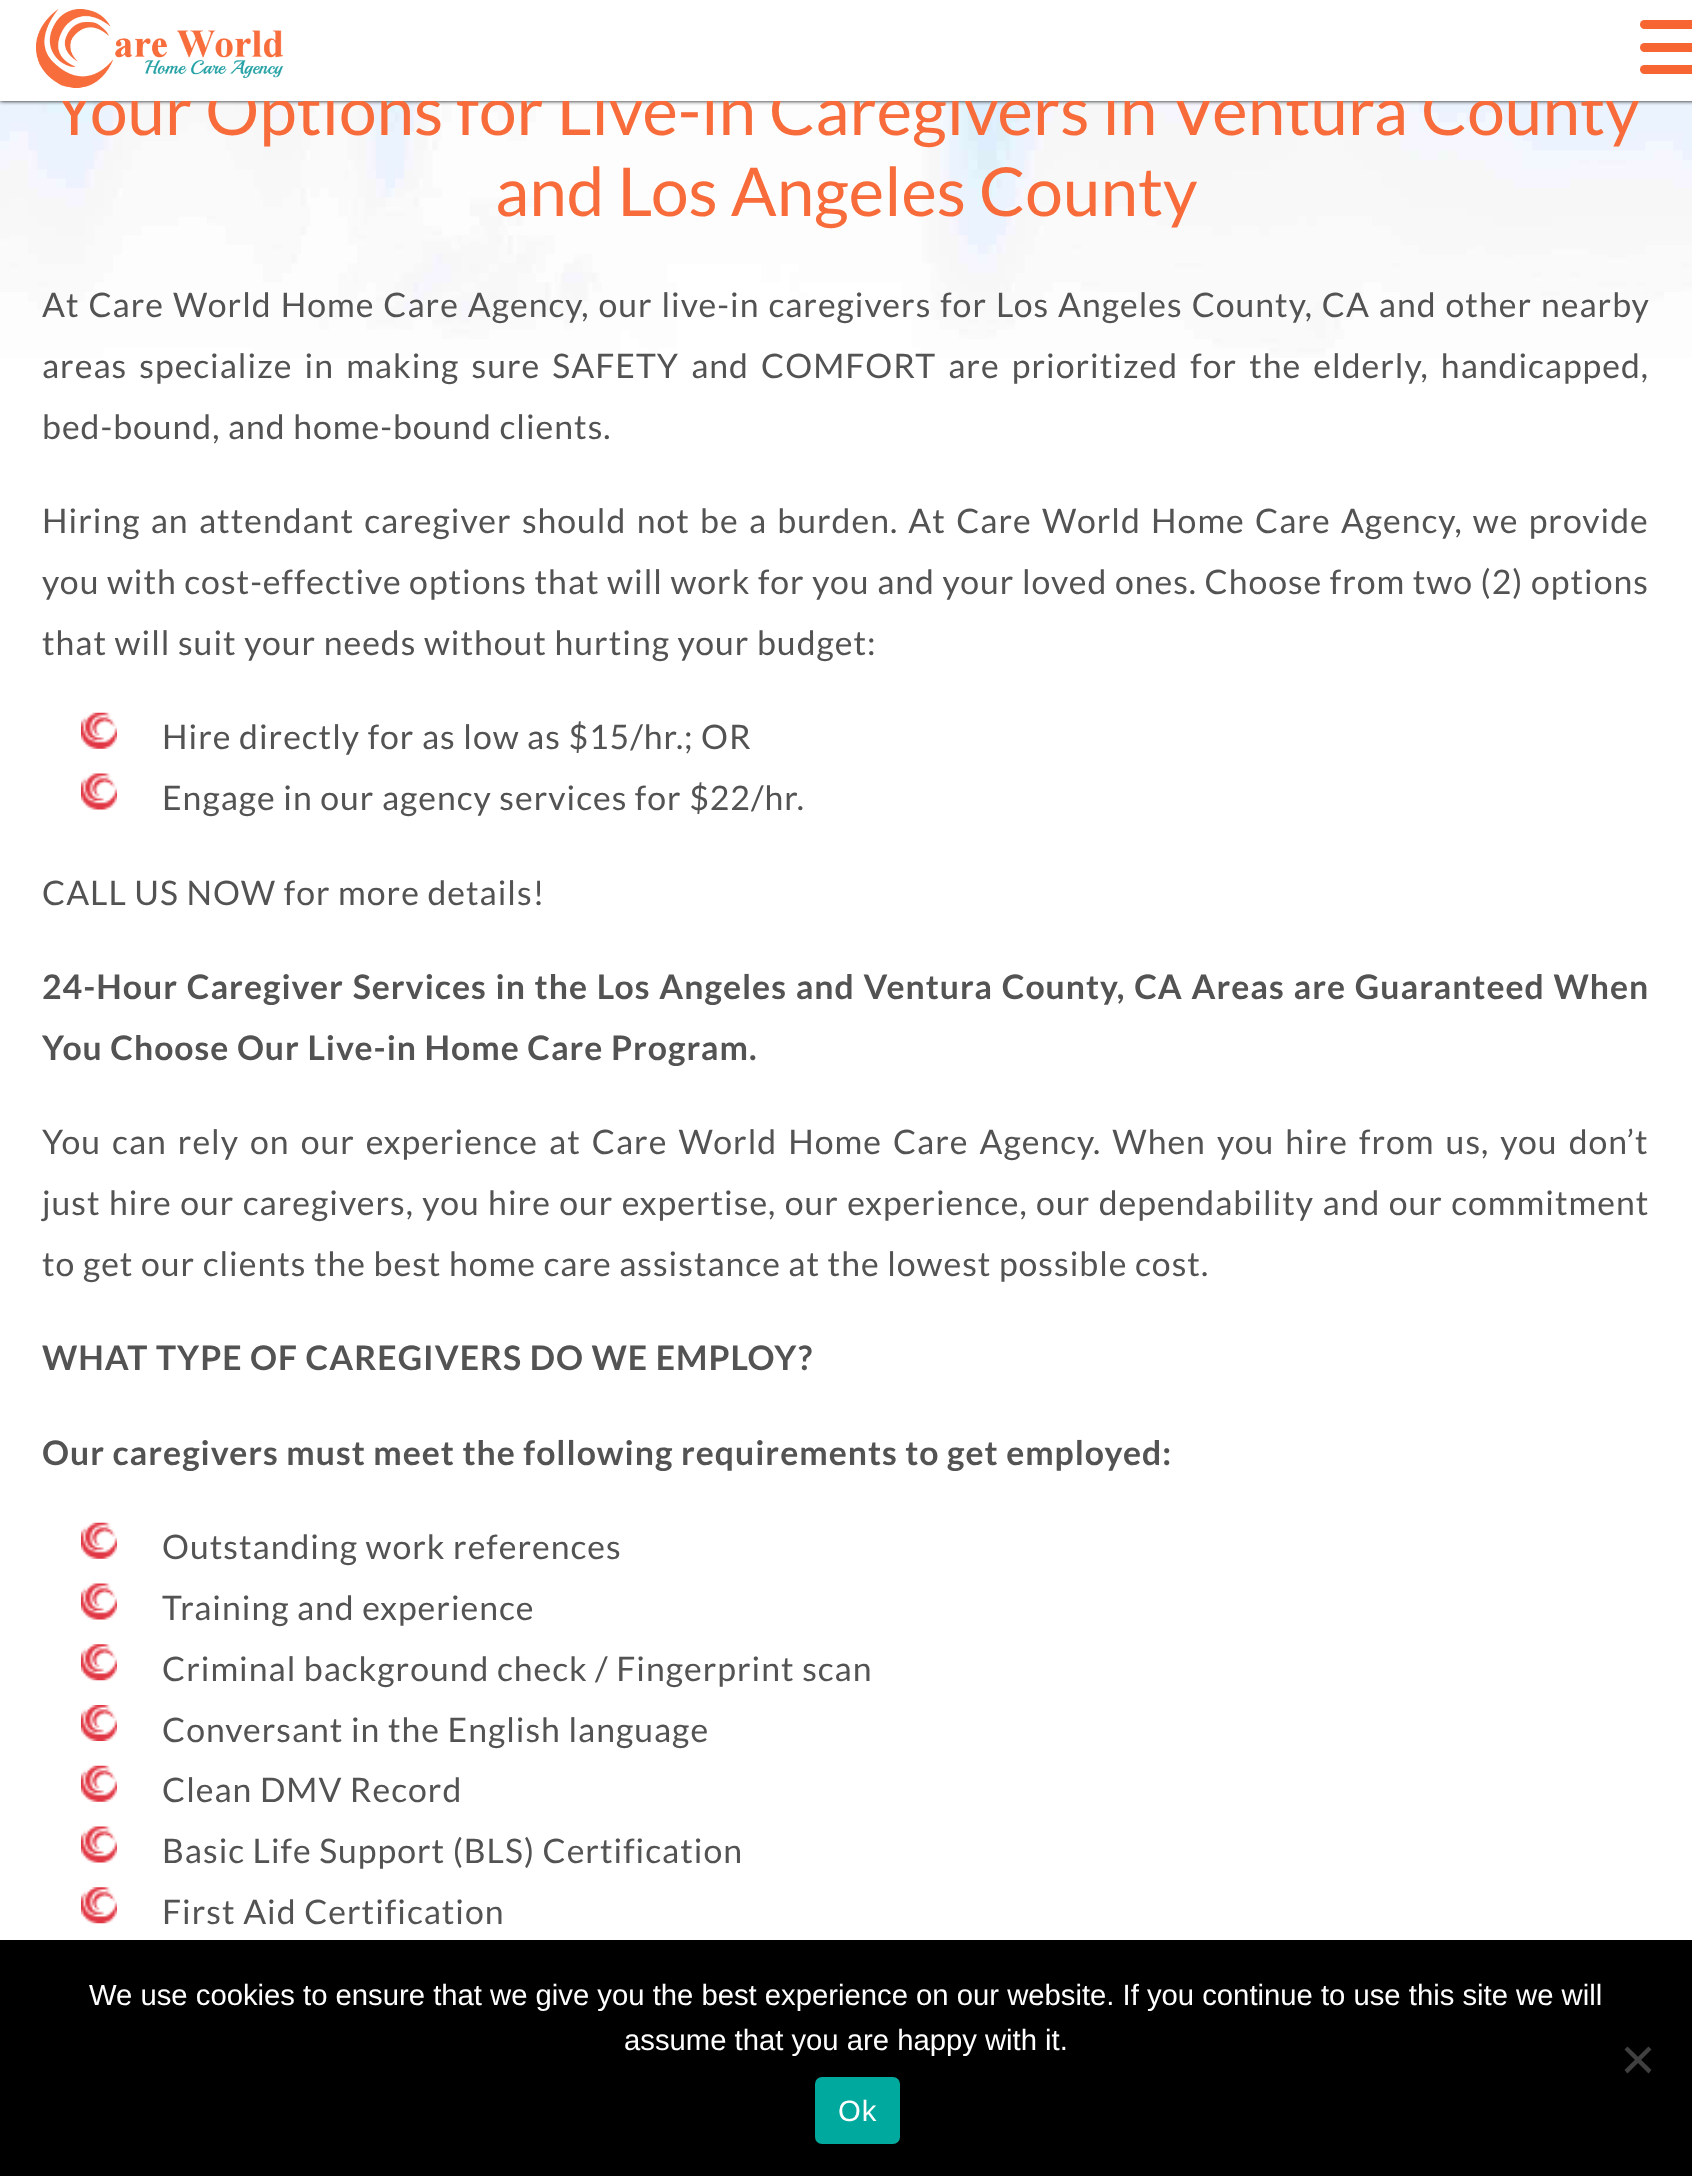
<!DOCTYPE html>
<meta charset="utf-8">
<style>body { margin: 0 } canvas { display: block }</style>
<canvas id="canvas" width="1692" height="2176"></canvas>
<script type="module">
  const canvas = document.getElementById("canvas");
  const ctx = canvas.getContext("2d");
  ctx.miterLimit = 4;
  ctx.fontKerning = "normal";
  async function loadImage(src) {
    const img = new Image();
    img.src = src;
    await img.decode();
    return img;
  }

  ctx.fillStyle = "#ffffff";
  ctx.fillRect(0, 0, 1692, 2176);
  ctx.drawImage(await loadImage("img2.png"), 0, 101, 1692, 257);
  ctx.fillStyle = "#000000";
  ctx.filter = "blur(2px)";
  ctx.beginPath();
  ctx.rect(0, 0, 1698, 101);
  ctx.fill();
  ctx.filter = "none";
  ctx.font = "67.5px Lato";
  ctx.fillStyle = "#f76c3a";
  ctx.fillText("Your Options for Live-in Caregivers in Ventura County", 53, 135);
  ctx.fillStyle = "#ffffff";
  ctx.fillRect(0, 0, 1692, 101);
  ctx.drawImage(await loadImage("img1.png"), 36, 9, 248, 79);
  ctx.fillStyle = "#f76533";
  ctx.beginPath();
  ctx.roundRect(1640, 20, 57, 9, 4.5);
  ctx.fill();
  ctx.beginPath();
  ctx.roundRect(1640, 43, 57, 9, 4.5);
  ctx.fill();
  ctx.beginPath();
  ctx.roundRect(1640, 65, 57, 9, 4.5);
  ctx.fill();
  ctx.fillStyle = "#f76c3a";
  ctx.fillText("and Los Angeles County", 495, 216);
  ctx.letterSpacing = "1.01px";
  ctx.wordSpacing = "1.4px";
  ctx.font = "33.75px Lato";
  ctx.fillStyle = "#535353";
  ctx.fillText("At Care World Home Care Agency, our live-in caregivers for Los Angeles County, CA and other nearby", 42, 317);
  ctx.wordSpacing = "4.6px";
  ctx.fillText("areas specialize in making sure SAFETY and COMFORT are prioritized for the elderly, handicapped,", 42, 378);
  ctx.wordSpacing = "0px";
  ctx.fillText("bed-bound, and home-bound clients.", 42, 439);
  ctx.wordSpacing = "2.75px";
  ctx.fillText("Hiring an attendant caregiver should not be a burden. At Care World Home Care Agency, we provide", 42, 533);
  ctx.wordSpacing = "0px";
  ctx.fillText("you with cost-effective options that will work for you and your loved ones. Choose from two (2) options", 42, 594);
  ctx.fillText("that will suit your needs without hurting your budget:", 42, 655);
  ctx.drawImage(await loadImage("img3.png"), 81, 712, 36, 37);
  ctx.fillText("Hire directly for as low as $15/hr.; OR", 162, 749);
  ctx.drawImage(await loadImage("img4.png"), 81, 773, 36, 37);
  ctx.fillText("Engage in our agency services for $22/hr.", 162, 810);
  ctx.fillText("CALL US NOW for more details!", 42, 905);
  ctx.wordSpacing = "1.25px";
  ctx.font = "bold 33.75px Lato";
  ctx.fillText("24-Hour Caregiver Services in the Los Angeles and Ventura County, CA Areas are Guaranteed When", 42, 999);
  ctx.wordSpacing = "0px";
  ctx.fillText("You Choose Our Live-in Home Care Program.", 42, 1060);
  ctx.wordSpacing = "3.5px";
  ctx.font = "33.75px Lato";
  ctx.fillText("You can rely on our experience at Care World Home Care Agency. When you hire from us, you don’t", 42, 1154);
  ctx.wordSpacing = "0.9px";
  ctx.fillText("just hire our caregivers, you hire our expertise, our experience, our dependability and our commitment", 42, 1215);
  ctx.wordSpacing = "0px";
  ctx.fillText("to get our clients the best home care assistance at the lowest possible cost.", 42, 1276);
  ctx.font = "bold 33.75px Lato";
  ctx.fillText("WHAT TYPE OF CAREGIVERS DO WE EMPLOY?", 42, 1370);
  ctx.fillText("Our caregivers must meet the following requirements to get employed:", 42, 1465);
  ctx.drawImage(await loadImage("img5.png"), 81, 1522, 36, 37);
  ctx.font = "33.75px Lato";
  ctx.fillText("Outstanding work references", 162, 1559);
  ctx.drawImage(await loadImage("img4.png"), 81, 1583, 36, 37);
  ctx.fillText("Training and experience", 162, 1620);
  ctx.drawImage(await loadImage("img6.png"), 81, 1644, 36, 37);
  ctx.fillText("Criminal background check / Fingerprint scan", 162, 1681);
  ctx.drawImage(await loadImage("img7.png"), 81, 1705, 36, 36);
  ctx.fillText("Conversant in the English language", 162, 1742);
  ctx.drawImage(await loadImage("img5.png"), 81, 1765, 36, 37);
  ctx.fillText("Clean DMV Record", 162, 1802);
  ctx.drawImage(await loadImage("img4.png"), 81, 1826, 36, 37);
  ctx.fillText("Basic Life Support (BLS) Certification", 162, 1863);
  ctx.drawImage(await loadImage("img6.png"), 81, 1887, 36, 37);
  ctx.fillText("First Aid Certification", 162, 1924);
  ctx.fillStyle = "#000000";
  ctx.fillRect(0, 1940, 1692, 236);
  ctx.letterSpacing = "0px";
  ctx.font = "29.25px Liberation Sans";
  ctx.fillStyle = "#ffffff";
  ctx.fillText("We use cookies to ensure that we give you the best experience on our website. If you continue to use this site we will", 89, 2005);
  ctx.fillText("assume that you are happy with it.", 624, 2050);
  ctx.fillStyle = "#404040";
  ctx.beginPath();
  ctx.moveTo(1648.5, 2046.5);
  ctx.lineTo(1651.5, 2049.5);
  ctx.lineTo(1627.5, 2073.5);
  ctx.lineTo(1624.5, 2070);
  ctx.closePath();
  ctx.fill();
  ctx.beginPath();
  ctx.moveTo(1624.5, 2049.5);
  ctx.lineTo(1627.5, 2046.5);
  ctx.lineTo(1651.5, 2070);
  ctx.lineTo(1648.5, 2073.5);
  ctx.closePath();
  ctx.fill();
  ctx.fillStyle = "#00a99d";
  ctx.beginPath();
  ctx.roundRect(815, 2077, 85, 67, 7);
  ctx.fill();
  ctx.letterSpacing = "1px";
  ctx.fillStyle = "#ffffff";
  ctx.fillText("Ok", 838, 2121);
</script>
